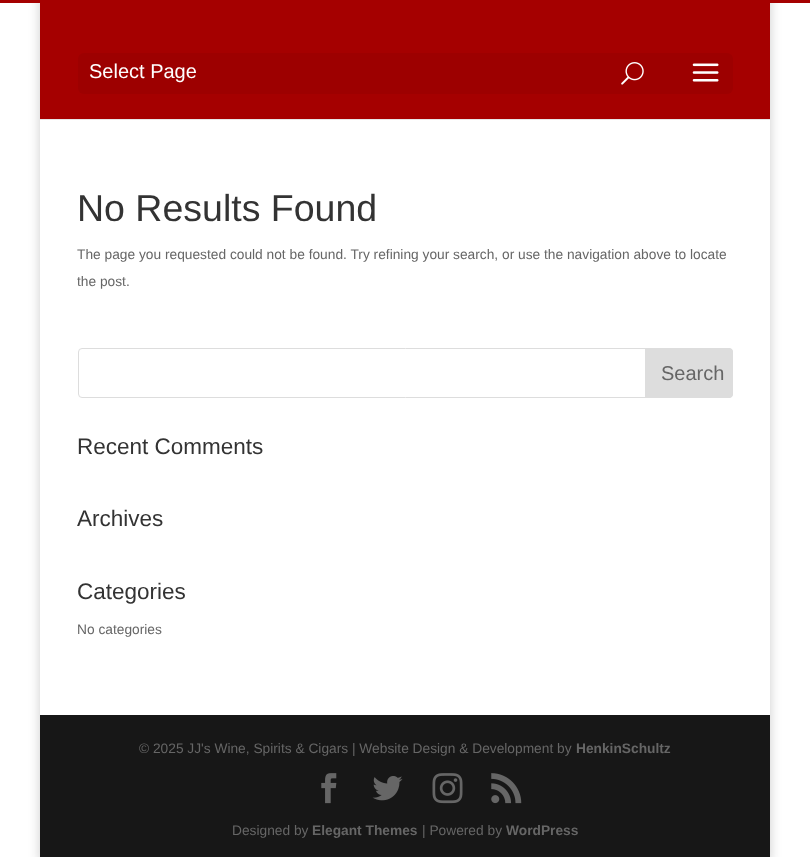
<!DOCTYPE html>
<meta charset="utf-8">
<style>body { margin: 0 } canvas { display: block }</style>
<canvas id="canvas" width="810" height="857"></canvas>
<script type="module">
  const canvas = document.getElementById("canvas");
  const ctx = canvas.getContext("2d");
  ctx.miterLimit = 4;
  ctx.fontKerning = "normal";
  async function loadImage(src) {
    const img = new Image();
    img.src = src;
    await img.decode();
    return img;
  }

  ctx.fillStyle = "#ffffff";
  ctx.fillRect(0, 0, 810, 857);
  ctx.save();
  ctx.beginPath();
  ctx.moveTo(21, 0);
  ctx.lineTo(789, 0);
  ctx.lineTo(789, 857);
  ctx.lineTo(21, 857);
  ctx.closePath();
  ctx.moveTo(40, -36);
  ctx.lineTo(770, -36);
  ctx.lineTo(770, 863);
  ctx.lineTo(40, 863);
  ctx.closePath();
  ctx.clip("evenodd");
  ctx.fillStyle = "rgba(0, 0, 0, 0.2)";
  ctx.filter = "blur(6px)";
  ctx.beginPath();
  ctx.rect(40, -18, 730, 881);
  ctx.fill();
  ctx.filter = "none";
  ctx.restore();
  ctx.fillStyle = "#a50000";
  ctx.fillRect(0, 0, 810, 3);
  ctx.fillStyle = "#e6e6e6";
  ctx.fillRect(40, 119, 730, 1);
  ctx.fillStyle = "#a50000";
  ctx.fillRect(40, 3, 730, 116);
  ctx.fillStyle = "#9d0000";
  ctx.beginPath();
  ctx.roundRect(78, 53, 655, 41, 6);
  ctx.fill();
  ctx.font = "20px Liberation Sans";
  ctx.fillStyle = "#ffffff";
  ctx.fillText("Select Page", 89, 78);
  ctx.drawImage(await loadImage("img1.png"), 692, 63, 27, 19);
  ctx.drawImage(await loadImage("img2.png"), 621, 62, 23, 23);
  ctx.font = "37.5px Liberation Sans";
  ctx.fillStyle = "#333333";
  ctx.fillText("No Results Found", 77, 221);
  ctx.font = "13.75px Liberation Sans";
  ctx.fillStyle = "#666666";
  ctx.fillText("The page you requested could not be found. Try refining your search, or use the navigation above to locate", 77, 259);
  ctx.fillText("the post.", 77, 286);
  ctx.beginPath();
  ctx.roundRect(78.5, 348.5, 654, 49, 3.5);
  ctx.strokeStyle = "#dddddd";
  ctx.stroke();
  ctx.fillStyle = "#dddddd";
  ctx.beginPath();
  ctx.roundRect(645.5, 348.5, 87, 49, [0, 3.5, 3.5, 0]);
  ctx.fill();
  ctx.stroke();
  ctx.font = "20px Liberation Sans";
  ctx.fillStyle = "#666666";
  ctx.fillText("Search", 661, 380);
  ctx.font = "22.5px Liberation Sans";
  ctx.fillStyle = "#333333";
  ctx.fillText("Recent Comments", 77, 454);
  ctx.fillText("Archives", 77, 526);
  ctx.fillText("Categories", 77, 599);
  ctx.font = "13.75px Liberation Sans";
  ctx.fillStyle = "#666666";
  ctx.fillText("No categories", 77, 634);
  ctx.fillStyle = "#171717";
  ctx.fillRect(40, 715, 730, 142);
  ctx.fillStyle = "#666666";
  ctx.fillText("© 2025 JJ's Wine, Spirits & Cigars | Website Design & Development by", 139, 753);
  ctx.font = "bold 13.75px Liberation Sans";
  ctx.fillText("HenkinSchultz", 576, 753);
  ctx.drawImage(await loadImage("img3.png"), 321, 773, 16, 31);
  ctx.drawImage(await loadImage("img4.png"), 372, 776, 31, 25);
  ctx.drawImage(await loadImage("img5.png"), 432, 773, 31, 31);
  ctx.drawImage(await loadImage("img6.png"), 491, 773, 31, 31);
  ctx.font = "13.75px Liberation Sans";
  ctx.fillText("Designed by", 232, 835);
  ctx.font = "bold 13.75px Liberation Sans";
  ctx.fillText("Elegant Themes", 312, 835);
  ctx.font = "13.75px Liberation Sans";
  ctx.fillText("| Powered by", 422, 835);
  ctx.font = "bold 13.75px Liberation Sans";
  ctx.fillText("WordPress", 506, 835);
</script>
